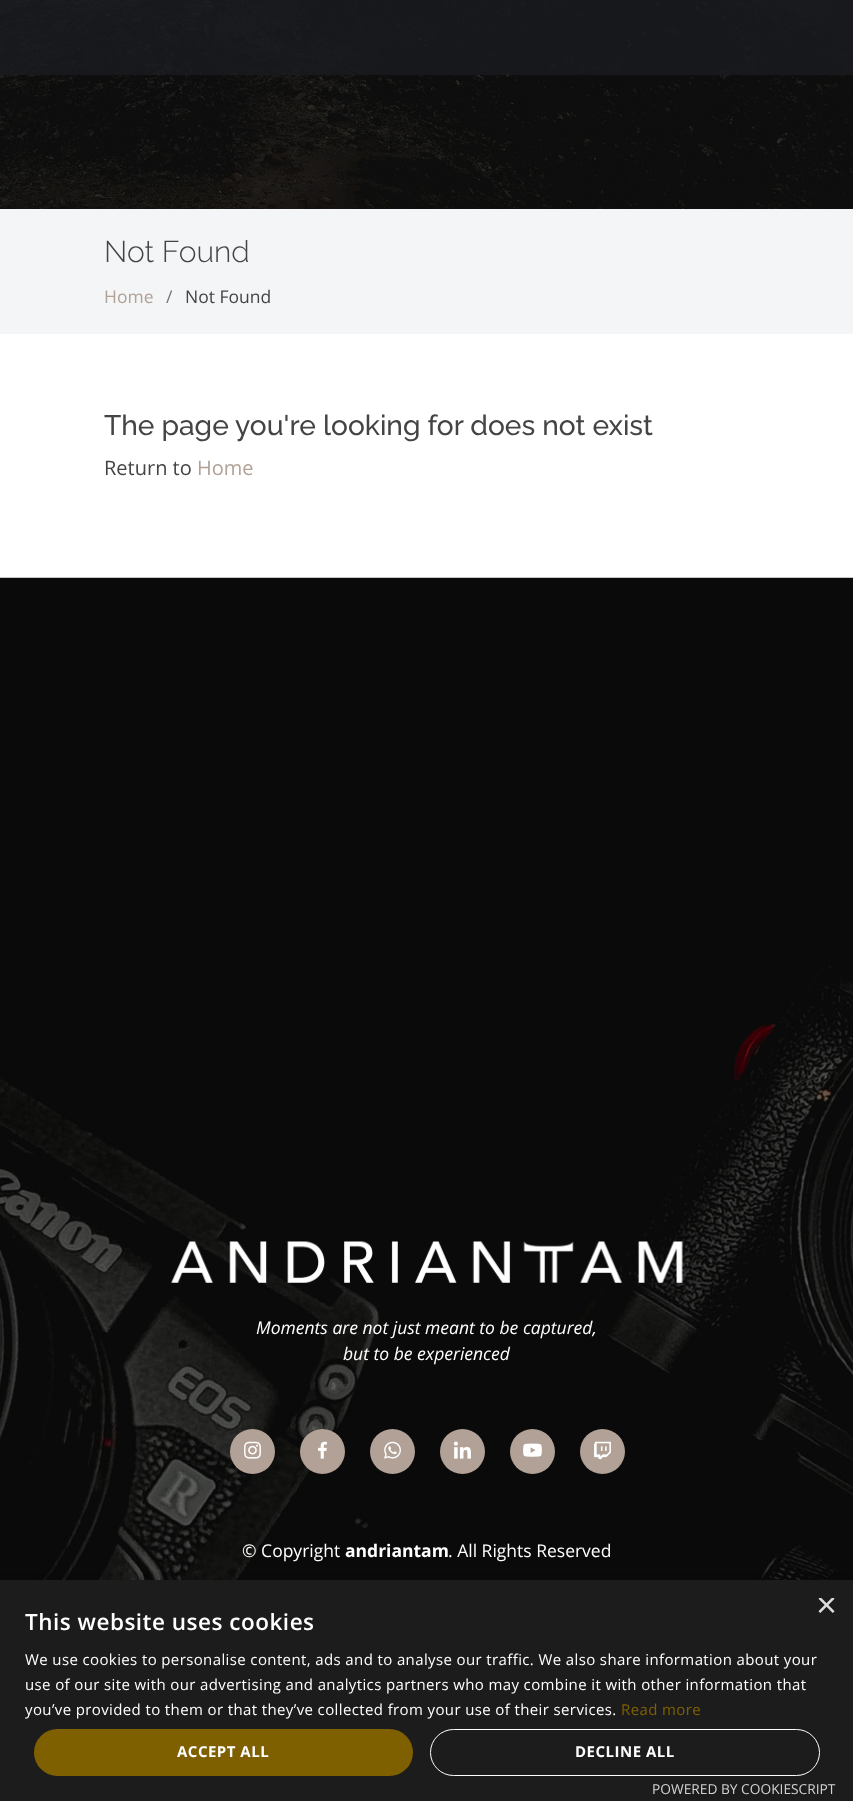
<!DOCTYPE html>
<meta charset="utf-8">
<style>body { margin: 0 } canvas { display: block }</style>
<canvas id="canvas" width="853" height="1801"></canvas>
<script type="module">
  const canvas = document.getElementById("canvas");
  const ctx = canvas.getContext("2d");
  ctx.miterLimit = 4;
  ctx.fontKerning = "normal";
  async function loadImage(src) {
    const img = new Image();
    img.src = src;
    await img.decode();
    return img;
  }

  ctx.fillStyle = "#ffffff";
  ctx.fillRect(0, 0, 853, 1801);
  ctx.drawImage(await loadImage("img1.png"), 0, 0, 853, 209);
  ctx.fillStyle = "rgba(25, 28, 31, 0.8)";
  ctx.fillRect(0, 0, 853, 75);
  ctx.fillStyle = "#f4f5f6";
  ctx.fillRect(0, 209, 853, 125);
  ctx.font = "300 30px Raleway";
  ctx.fillStyle = "#444444";
  ctx.fillText("Not Found", 104, 262);
  ctx.font = "17.5px Open Sans";
  ctx.fillStyle = "#b1a197";
  ctx.fillText("Home", 104, 303);
  ctx.fillStyle = "#6c757d";
  ctx.fillText("/", 166, 303);
  ctx.fillStyle = "#444444";
  ctx.fillText("Not Found", 185, 303);
  ctx.font = "500 28.1px Raleway";
  ctx.fillText("The page you're looking for does not exist", 104, 435);
  ctx.font = "20px Open Sans";
  ctx.fillText("Return to", 104, 475);
  ctx.fillStyle = "#b1a197";
  ctx.fillText("Home", 197, 475);
  ctx.drawImage(await loadImage("img2.png"), 0, 577, 853, 1003);
  ctx.drawImage(await loadImage("img3.png"), 171, 1241, 512, 42);
  ctx.font = "italic 17.5px Open Sans";
  ctx.fillStyle = "#ffffff";
  ctx.fillText("Moments are not just meant to be captured,", 256, 1334);
  ctx.fillText("but to be experienced", 343, 1360);
  ctx.fillStyle = "#b1a197";
  ctx.beginPath();
  ctx.arc(252.5, 1451.5, 22.5, 0, Math.PI * 2);
  ctx.fill();
  ctx.drawImage(await loadImage("img4.png"), 244, 1441, 17, 18);
  ctx.beginPath();
  ctx.arc(322.5, 1451.5, 22.5, 0, Math.PI * 2);
  ctx.fill();
  ctx.drawImage(await loadImage("img5.png"), 318, 1441, 9, 18);
  ctx.beginPath();
  ctx.arc(392.5, 1451.5, 22.5, 0, Math.PI * 2);
  ctx.fill();
  ctx.drawImage(await loadImage("img6.png"), 384, 1441, 17, 18);
  ctx.beginPath();
  ctx.arc(462.5, 1451.5, 22.5, 0, Math.PI * 2);
  ctx.fill();
  ctx.drawImage(await loadImage("img7.png"), 453, 1441, 18, 18);
  ctx.beginPath();
  ctx.arc(532.5, 1451.5, 22.5, 0, Math.PI * 2);
  ctx.fill();
  ctx.drawImage(await loadImage("img8.png"), 523, 1443, 19, 14);
  ctx.beginPath();
  ctx.arc(602.5, 1451.5, 22.5, 0, Math.PI * 2);
  ctx.fill();
  ctx.drawImage(await loadImage("img9.png"), 594, 1441, 17, 19);
  ctx.font = "17.5px Open Sans";
  ctx.fillStyle = "#ffffff";
  ctx.fillText("© Copyright", 242, 1557);
  ctx.font = "bold 17.5px Open Sans";
  ctx.fillText("andriantam", 345, 1557);
  ctx.font = "17.5px Open Sans";
  ctx.fillText(". All Rights Reserved", 448, 1557);
  ctx.fillStyle = "rgba(0, 0, 0, 0.35)";
  ctx.filter = "blur(5px)";
  ctx.beginPath();
  ctx.rect(1, 1583, 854, 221);
  ctx.fill();
  ctx.filter = "none";
  ctx.fillStyle = "#1c1c1c";
  ctx.fillRect(0, 1580, 853, 221);
  ctx.save();
  ctx.beginPath();
  ctx.rect(816, 1598, 19, 18);
  ctx.clip();
  ctx.font = "36px Liberation Sans";
  ctx.fillStyle = "#dddddd";
  ctx.fillText("×", 816, 1617);
  ctx.restore();
  ctx.letterSpacing = "0.5px";
  ctx.font = "600 22.5px Open Sans";
  ctx.fillStyle = "#ffffff";
  ctx.fillText("This website uses cookies", 25, 1630);
  ctx.letterSpacing = "0.38px";
  ctx.font = "15px Open Sans";
  ctx.fillText("We use cookies to personalise content, ads and to analyse our traffic. We also share information about your", 25, 1665);
  ctx.fillText("use of our site with our advertising and analytics partners who may combine it with other information that", 25, 1690);
  ctx.fillText("you’ve provided to them or that they’ve collected from your use of their services.", 25, 1715);
  ctx.fillStyle = "#7f6000";
  ctx.fillText("Read more", 621, 1715);
  ctx.beginPath();
  ctx.roundRect(34, 1729, 379, 47, 23.5);
  ctx.fill();
  ctx.letterSpacing = "0.5px";
  ctx.font = "bold 15px Open Sans";
  ctx.fillStyle = "#ffffff";
  ctx.fillText("ACCEPT ALL", 177, 1757);
  ctx.beginPath();
  ctx.roundRect(430.5, 1729.5, 389, 46, 23);
  ctx.strokeStyle = "#ffffff";
  ctx.stroke();
  ctx.fillText("DECLINE ALL", 575, 1757);
  ctx.letterSpacing = "0px";
  ctx.font = "13.75px Open Sans";
  ctx.fillStyle = "#d2d2d2";
  ctx.fillText("POWERED BY COOKIESCRIPT", 652, 1794);
</script>
